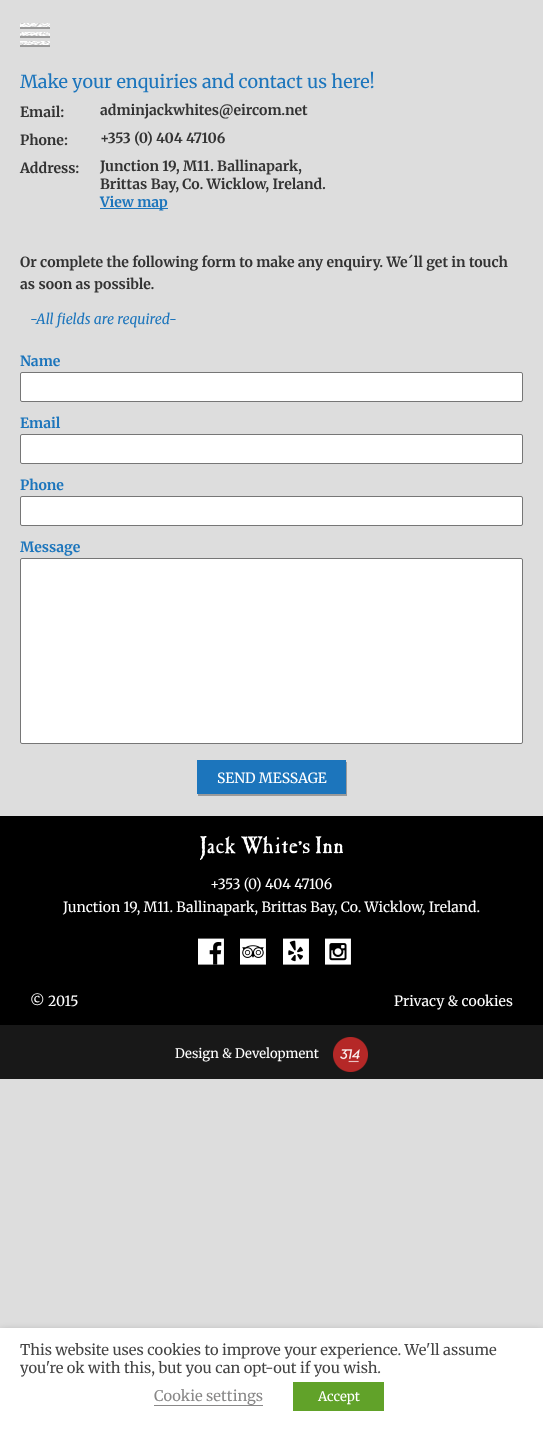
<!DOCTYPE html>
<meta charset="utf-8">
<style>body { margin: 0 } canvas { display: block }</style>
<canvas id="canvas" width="543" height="1429"></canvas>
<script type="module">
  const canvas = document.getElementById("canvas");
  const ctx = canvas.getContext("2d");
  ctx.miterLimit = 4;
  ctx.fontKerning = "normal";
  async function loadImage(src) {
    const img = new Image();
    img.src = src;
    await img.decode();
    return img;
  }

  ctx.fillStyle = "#dddddd";
  ctx.fillRect(0, 0, 543, 1429);
  ctx.drawImage(await loadImage("img1.png"), 20, 23, 30, 24);
  ctx.font = "18px Merriweather";
  ctx.fillStyle = "#1c75bc";
  ctx.fillText("Make your enquiries and contact us here!", 20, 88);
  ctx.font = "bold 14px Merriweather";
  ctx.fillStyle = "#333333";
  ctx.fillText("Email:", 20, 117);
  ctx.fillText("adminjackwhites@eircom.net", 100, 115);
  ctx.fillText("Phone:", 20, 145);
  ctx.fillText("+353 (0) 404 47106", 100, 143);
  ctx.fillText("Address:", 20, 173);
  ctx.fillText("Junction 19, M11. Ballinapark,", 100, 171);
  ctx.fillText("Brittas Bay, Co. Wicklow, Ireland.", 100, 189);
  ctx.fillStyle = "#1c75bc";
  ctx.fillRect(100, 208, 68, 1);
  ctx.fillText("View map", 100, 207);
  ctx.fillStyle = "#333333";
  ctx.fillText("Or complete the following form to make any enquiry. We´ll get in touch", 20, 267);
  ctx.fillText("as soon as possible.", 20, 289);
  ctx.font = "italic 14px Merriweather";
  ctx.fillStyle = "#1c75bc";
  ctx.fillText("-All fields are required-", 30, 324);
  ctx.font = "bold 14px Merriweather";
  ctx.fillText("Name", 20, 366);
  ctx.fillStyle = "#ffffff";
  ctx.beginPath();
  ctx.roundRect(20.5, 372.5, 502, 29, 1.5);
  ctx.fill();
  ctx.strokeStyle = "#767676";
  ctx.stroke();
  ctx.fillStyle = "#1c75bc";
  ctx.fillText("Email", 20, 428);
  ctx.fillStyle = "#ffffff";
  ctx.beginPath();
  ctx.roundRect(20.5, 434.5, 502, 29, 1.5);
  ctx.fill();
  ctx.stroke();
  ctx.fillStyle = "#1c75bc";
  ctx.fillText("Phone", 20, 490);
  ctx.fillStyle = "#ffffff";
  ctx.beginPath();
  ctx.roundRect(20.5, 496.5, 502, 29, 1.5);
  ctx.fill();
  ctx.stroke();
  ctx.fillStyle = "#1c75bc";
  ctx.fillText("Message", 20, 552);
  ctx.fillStyle = "#ffffff";
  ctx.beginPath();
  ctx.roundRect(20.5, 558.5, 502, 185, 1.5);
  ctx.fill();
  ctx.stroke();
  ctx.drawImage(await loadImage("img2.png"), 197, 760, 150, 36);
  ctx.font = "14px Merriweather";
  ctx.fillText("SEND MESSAGE", 217, 783);
  ctx.fillStyle = "#000000";
  ctx.fillRect(0, 816, 543, 209);
  ctx.drawImage(await loadImage("img3.png"), 200, 836, 143, 24);
  ctx.fillStyle = "#ffffff";
  ctx.fillText("+353 (0) 404 47106", 210, 889);
  ctx.fillText("Junction 19, M11. Ballinapark, Brittas Bay, Co. Wicklow, Ireland.", 63, 912);
  ctx.drawImage(await loadImage("img4.png"), 198, 938, 26, 27);
  ctx.drawImage(await loadImage("img5.png"), 240, 938, 26, 27);
  ctx.drawImage(await loadImage("img6.png"), 283, 938, 26, 27);
  ctx.drawImage(await loadImage("img7.png"), 325, 938, 26, 27);
  ctx.fillText("© 2015", 30, 1006);
  ctx.fillText("Privacy & cookies", 394, 1006);
  ctx.fillStyle = "#181818";
  ctx.fillRect(0, 1025, 543, 54);
  ctx.font = "13px Merriweather";
  ctx.fillStyle = "#ffffff";
  ctx.fillText("Design & Development", 175, 1058);
  ctx.drawImage(await loadImage("img8.png"), 333, 1037, 35, 35);
  ctx.fillStyle = "rgba(0, 0, 0, 0.5)";
  ctx.filter = "blur(5px)";
  ctx.beginPath();
  ctx.rect(0, 1333, 543, 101);
  ctx.fill();
  ctx.filter = "none";
  ctx.fillStyle = "#ffffff";
  ctx.fillRect(0, 1328, 543, 101);
  ctx.font = "14.7px Merriweather";
  ctx.fillStyle = "#444444";
  ctx.fillText("This website uses cookies to improve your experience. We'll assume", 20, 1355);
  ctx.fillText("you're ok with this, but you can opt-out if you wish.", 20, 1373);
  ctx.fillStyle = "#898888";
  ctx.fillText("Cookie settings", 154, 1401);
  ctx.fillRect(154, 1405, 109, 1);
  ctx.fillStyle = "#61a229";
  ctx.fillRect(293, 1382, 91, 29);
  ctx.font = "13px Merriweather";
  ctx.fillStyle = "#ffffff";
  ctx.fillText("Accept", 318, 1401);
</script>
